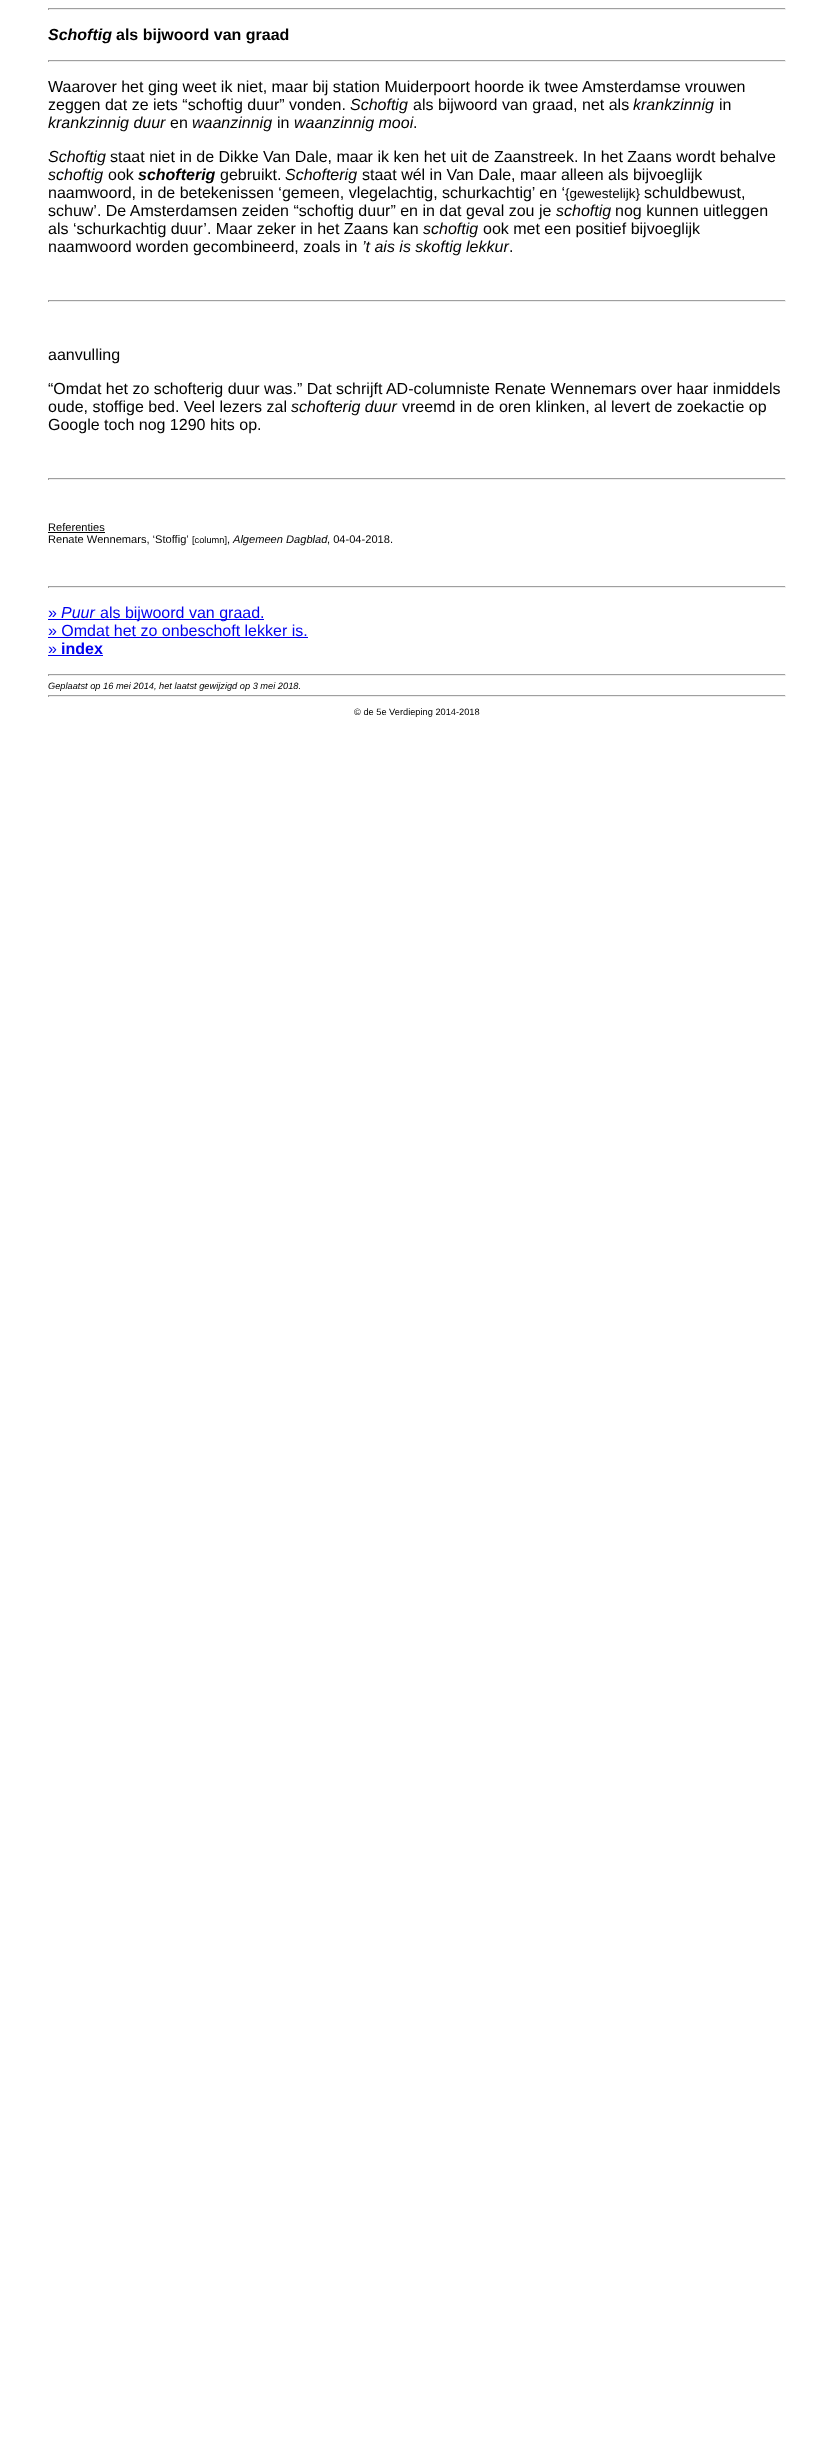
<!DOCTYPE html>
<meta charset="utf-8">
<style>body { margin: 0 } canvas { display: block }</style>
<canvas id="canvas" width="834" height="2439"></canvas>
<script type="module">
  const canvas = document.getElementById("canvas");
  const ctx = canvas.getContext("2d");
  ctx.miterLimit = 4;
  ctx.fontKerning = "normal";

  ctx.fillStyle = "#ffffff";
  ctx.fillRect(0, 0, 834, 2439);
  ctx.fillStyle = "#9f9f9f";
  ctx.fillRect(48, 8, 738, 1);
  ctx.fillStyle = "#eeeeee";
  ctx.fillRect(785, 8, 1, 2);
  ctx.fillRect(48, 9, 738, 1);
  ctx.fillStyle = "#9f9f9f";
  ctx.fillRect(48, 8, 1, 2);
  ctx.font = "italic bold 16px Liberation Sans";
  ctx.fillStyle = "#000000";
  ctx.fillText("Schoftig", 48, 40);
  ctx.font = "bold 16px Liberation Sans";
  ctx.fillText("als bijwoord van graad", 116, 40);
  ctx.fillStyle = "#9f9f9f";
  ctx.fillRect(48, 60, 738, 1);
  ctx.fillStyle = "#eeeeee";
  ctx.fillRect(785, 60, 1, 2);
  ctx.fillRect(48, 61, 738, 1);
  ctx.fillStyle = "#9f9f9f";
  ctx.fillRect(48, 60, 1, 2);
  ctx.font = "16px Liberation Sans";
  ctx.fillStyle = "#000000";
  ctx.fillText("Waarover het ging weet ik niet, maar bij station Muiderpoort hoorde ik twee Amsterdamse vrouwen", 48, 92);
  ctx.fillText("zeggen dat ze iets “schoftig duur” vonden.", 48, 110);
  ctx.font = "italic 16px Liberation Sans";
  ctx.fillText("Schoftig", 350, 110);
  ctx.font = "16px Liberation Sans";
  ctx.fillText("als bijwoord van graad, net als", 413, 110);
  ctx.font = "italic 16px Liberation Sans";
  ctx.fillText("krankzinnig", 633, 110);
  ctx.font = "16px Liberation Sans";
  ctx.fillText("in", 719, 110);
  ctx.font = "italic 16px Liberation Sans";
  ctx.fillText("krankzinnig duur", 48, 128);
  ctx.font = "16px Liberation Sans";
  ctx.fillText("en", 170, 128);
  ctx.font = "italic 16px Liberation Sans";
  ctx.fillText("waanzinnig", 192, 128);
  ctx.font = "16px Liberation Sans";
  ctx.fillText("in", 277, 128);
  ctx.font = "italic 16px Liberation Sans";
  ctx.fillText("waanzinnig mooi", 294, 128);
  ctx.font = "16px Liberation Sans";
  ctx.fillText(".", 413, 128);
  ctx.font = "italic 16px Liberation Sans";
  ctx.fillText("Schoftig", 48, 162);
  ctx.font = "16px Liberation Sans";
  ctx.fillText("staat niet in de Dikke Van Dale, maar ik ken het uit de Zaanstreek. In het Zaans wordt behalve", 110, 162);
  ctx.font = "italic 16px Liberation Sans";
  ctx.fillText("schoftig", 48, 180);
  ctx.font = "16px Liberation Sans";
  ctx.fillText("ook", 108, 180);
  ctx.font = "italic bold 16px Liberation Sans";
  ctx.fillText("schofterig", 138, 180);
  ctx.font = "16px Liberation Sans";
  ctx.fillText("gebruikt.", 220, 180);
  ctx.font = "italic 16px Liberation Sans";
  ctx.fillText("Schofterig", 285, 180);
  ctx.font = "16px Liberation Sans";
  ctx.fillText("staat wél in Van Dale, maar alleen als bijvoeglijk", 362, 180);
  ctx.fillText("naamwoord, in de betekenissen ‘gemeen, vlegelachtig, schurkachtig’ en ‘", 48, 198);
  ctx.font = "13.5px Liberation Sans";
  ctx.fillText("{gewestelijk}", 565, 198);
  ctx.font = "16px Liberation Sans";
  ctx.fillText("schuldbewust,", 644, 198);
  ctx.fillText("schuw’. De Amsterdamsen zeiden “schoftig duur” en in dat geval zou je", 48, 216);
  ctx.font = "italic 16px Liberation Sans";
  ctx.fillText("schoftig", 556, 216);
  ctx.font = "16px Liberation Sans";
  ctx.fillText("nog kunnen uitleggen", 615, 216);
  ctx.fillText("als ‘schurkachtig duur’. Maar zeker in het Zaans kan", 48, 234);
  ctx.font = "italic 16px Liberation Sans";
  ctx.fillText("schoftig", 423, 234);
  ctx.font = "16px Liberation Sans";
  ctx.fillText("ook met een positief bijvoeglijk", 483, 234);
  ctx.fillText("naamwoord worden gecombineerd, zoals in", 48, 252);
  ctx.font = "italic 16px Liberation Sans";
  ctx.fillText("’t ais is skoftig lekkur", 362, 252);
  ctx.font = "16px Liberation Sans";
  ctx.fillText(".", 509, 252);
  ctx.fillStyle = "#9f9f9f";
  ctx.fillRect(48, 300, 738, 1);
  ctx.fillStyle = "#eeeeee";
  ctx.fillRect(785, 300, 1, 2);
  ctx.fillRect(48, 301, 738, 1);
  ctx.fillStyle = "#9f9f9f";
  ctx.fillRect(48, 300, 1, 2);
  ctx.fillStyle = "#000000";
  ctx.fillText("aanvulling", 48, 360);
  ctx.fillText("“Omdat het zo schofterig duur was.” Dat schrijft AD-columniste Renate Wennemars over haar inmiddels", 48, 394);
  ctx.fillText("oude, stoffige bed. Veel lezers zal", 48, 412);
  ctx.font = "italic 16px Liberation Sans";
  ctx.fillText("schofterig duur", 291, 412);
  ctx.font = "16px Liberation Sans";
  ctx.fillText("vreemd in de oren klinken, al levert de zoekactie op", 402, 412);
  ctx.fillText("Google toch nog 1290 hits op.", 48, 430);
  ctx.fillStyle = "#9f9f9f";
  ctx.fillRect(48, 478, 738, 1);
  ctx.fillStyle = "#eeeeee";
  ctx.fillRect(785, 478, 1, 2);
  ctx.fillRect(48, 479, 738, 1);
  ctx.fillStyle = "#9f9f9f";
  ctx.fillRect(48, 478, 1, 2);
  ctx.font = "11.1px Liberation Sans";
  ctx.fillStyle = "#000000";
  ctx.fillText("Referenties", 48, 531);
  ctx.fillRect(48, 532, 57, 1);
  ctx.fillText("Renate Wennemars, ‘Stoffig’", 48, 543);
  ctx.font = "9.25px Liberation Sans";
  ctx.fillText("[column]", 192, 543);
  ctx.font = "11.1px Liberation Sans";
  ctx.fillText(",", 227, 543);
  ctx.font = "italic 11.1px Liberation Sans";
  ctx.fillText("Algemeen Dagblad", 233, 543);
  ctx.font = "11.1px Liberation Sans";
  ctx.fillText(", 04-04-2018.", 327, 543);
  ctx.fillStyle = "#9f9f9f";
  ctx.fillRect(48, 586, 738, 1);
  ctx.fillStyle = "#eeeeee";
  ctx.fillRect(785, 586, 1, 2);
  ctx.fillRect(48, 587, 738, 1);
  ctx.fillStyle = "#9f9f9f";
  ctx.fillRect(48, 586, 1, 2);
  ctx.font = "16px Liberation Sans";
  ctx.fillStyle = "#0000ee";
  ctx.fillText("»", 48, 618);
  ctx.font = "italic 16px Liberation Sans";
  ctx.fillText("Puur", 61, 618);
  ctx.fillRect(48, 619, 216, 1);
  ctx.font = "16px Liberation Sans";
  ctx.fillText("als bijwoord van graad.", 100, 618);
  ctx.fillText("» Omdat het zo onbeschoft lekker is.", 48, 636);
  ctx.fillRect(48, 637, 260, 1);
  ctx.fillText("»", 48, 654);
  ctx.fillRect(48, 655, 55, 1);
  ctx.font = "bold 16px Liberation Sans";
  ctx.fillText("index", 61, 654);
  ctx.fillStyle = "#9f9f9f";
  ctx.fillRect(48, 674, 738, 1);
  ctx.fillStyle = "#eeeeee";
  ctx.fillRect(785, 674, 1, 2);
  ctx.fillRect(48, 675, 738, 1);
  ctx.fillStyle = "#9f9f9f";
  ctx.fillRect(48, 674, 1, 2);
  ctx.font = "italic 9.25px Liberation Sans";
  ctx.fillStyle = "#000000";
  ctx.fillText("Geplaatst op 16 mei 2014, het laatst gewijzigd op 3 mei 2018.", 48, 689);
  ctx.fillStyle = "#9f9f9f";
  ctx.fillRect(48, 695, 738, 1);
  ctx.fillStyle = "#eeeeee";
  ctx.fillRect(785, 695, 1, 2);
  ctx.fillRect(48, 696, 738, 1);
  ctx.fillStyle = "#9f9f9f";
  ctx.fillRect(48, 695, 1, 2);
  ctx.font = "9.25px Liberation Sans";
  ctx.fillStyle = "#000000";
  ctx.fillText("© de 5e Verdieping 2014-2018", 354, 715);
</script>
